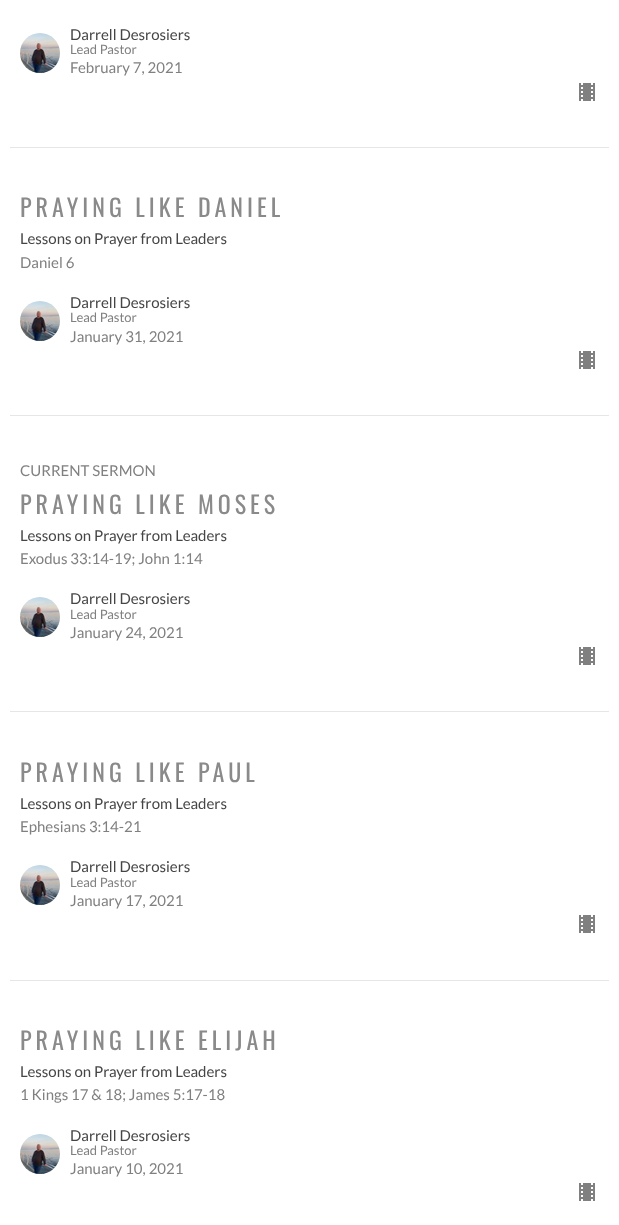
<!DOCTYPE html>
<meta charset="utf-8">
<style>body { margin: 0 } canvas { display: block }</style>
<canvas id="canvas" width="619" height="1225"></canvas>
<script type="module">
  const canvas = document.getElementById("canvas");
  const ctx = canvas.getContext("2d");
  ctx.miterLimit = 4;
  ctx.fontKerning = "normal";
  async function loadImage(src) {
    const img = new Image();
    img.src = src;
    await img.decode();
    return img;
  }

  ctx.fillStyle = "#ffffff";
  ctx.fillRect(0, 0, 619, 1225);
  ctx.fillStyle = "#e6e6e6";
  ctx.fillRect(10, 147, 599, 1);
  ctx.drawImage(await loadImage("img1.png"), 20, 33, 40, 40);
  ctx.font = "15px Lato";
  ctx.fillStyle = "#454545";
  ctx.fillText("Darrell Desrosiers", 70, 40);
  ctx.font = "13px Lato";
  ctx.fillStyle = "#808080";
  ctx.fillText("Lead Pastor", 70, 54);
  ctx.font = "15px Lato";
  ctx.fillText("February 7, 2021", 70, 73);
  ctx.drawImage(await loadImage("img2.png"), 579, 83, 16, 18);
  ctx.fillStyle = "#e6e6e6";
  ctx.fillRect(10, 415, 599, 1);
  ctx.letterSpacing = "4px";
  ctx.font = "24px Oswald";
  ctx.fillStyle = "#8a8a8a";
  ctx.fillText("PRAYING LIKE DANIEL", 20, 217);
  ctx.letterSpacing = "0px";
  ctx.font = "15px Lato";
  ctx.fillStyle = "#454545";
  ctx.fillText("Lessons on Prayer from Leaders", 20, 244);
  ctx.fillStyle = "#808080";
  ctx.fillText("Daniel 6", 20, 268);
  ctx.drawImage(await loadImage("img1.png"), 20, 301, 40, 40);
  ctx.fillStyle = "#454545";
  ctx.fillText("Darrell Desrosiers", 70, 308);
  ctx.font = "13px Lato";
  ctx.fillStyle = "#808080";
  ctx.fillText("Lead Pastor", 70, 322);
  ctx.font = "15px Lato";
  ctx.fillText("January 31, 2021", 70, 342);
  ctx.drawImage(await loadImage("img2.png"), 579, 351, 16, 18);
  ctx.fillStyle = "#e6e6e6";
  ctx.fillRect(10, 711, 599, 1);
  ctx.fillStyle = "#808080";
  ctx.fillText("CURRENT SERMON", 20, 476);
  ctx.letterSpacing = "4px";
  ctx.font = "24px Oswald";
  ctx.fillStyle = "#8a8a8a";
  ctx.fillText("PRAYING LIKE MOSES", 20, 514);
  ctx.letterSpacing = "0px";
  ctx.font = "15px Lato";
  ctx.fillStyle = "#454545";
  ctx.fillText("Lessons on Prayer from Leaders", 20, 541);
  ctx.fillStyle = "#808080";
  ctx.fillText("Exodus 33:14-19; John 1:14", 20, 564);
  ctx.drawImage(await loadImage("img1.png"), 20, 597, 40, 40);
  ctx.fillStyle = "#454545";
  ctx.fillText("Darrell Desrosiers", 70, 604);
  ctx.font = "13px Lato";
  ctx.fillStyle = "#808080";
  ctx.fillText("Lead Pastor", 70, 619);
  ctx.font = "15px Lato";
  ctx.fillText("January 24, 2021", 70, 638);
  ctx.drawImage(await loadImage("img2.png"), 579, 647, 16, 18);
  ctx.fillStyle = "#e6e6e6";
  ctx.fillRect(10, 980, 599, 1);
  ctx.letterSpacing = "4px";
  ctx.font = "24px Oswald";
  ctx.fillStyle = "#8a8a8a";
  ctx.fillText("PRAYING LIKE PAUL", 20, 782);
  ctx.letterSpacing = "0px";
  ctx.font = "15px Lato";
  ctx.fillStyle = "#454545";
  ctx.fillText("Lessons on Prayer from Leaders", 20, 809);
  ctx.fillStyle = "#808080";
  ctx.fillText("Ephesians 3:14-21", 20, 832);
  ctx.drawImage(await loadImage("img1.png"), 20, 865, 40, 40);
  ctx.fillStyle = "#454545";
  ctx.fillText("Darrell Desrosiers", 70, 872);
  ctx.font = "13px Lato";
  ctx.fillStyle = "#808080";
  ctx.fillText("Lead Pastor", 70, 887);
  ctx.font = "15px Lato";
  ctx.fillText("January 17, 2021", 70, 906);
  ctx.drawImage(await loadImage("img2.png"), 579, 915, 16, 18);
  ctx.letterSpacing = "4px";
  ctx.font = "24px Oswald";
  ctx.fillStyle = "#8a8a8a";
  ctx.fillText("PRAYING LIKE ELIJAH", 20, 1050);
  ctx.letterSpacing = "0px";
  ctx.font = "15px Lato";
  ctx.fillStyle = "#454545";
  ctx.fillText("Lessons on Prayer from Leaders", 20, 1077);
  ctx.fillStyle = "#808080";
  ctx.fillText("1 Kings 17 & 18; James 5:17-18", 20, 1100);
  ctx.drawImage(await loadImage("img1.png"), 20, 1134, 40, 40);
  ctx.fillStyle = "#454545";
  ctx.fillText("Darrell Desrosiers", 70, 1141);
  ctx.font = "13px Lato";
  ctx.fillStyle = "#808080";
  ctx.fillText("Lead Pastor", 70, 1155);
  ctx.font = "15px Lato";
  ctx.fillText("January 10, 2021", 70, 1174);
  ctx.drawImage(await loadImage("img2.png"), 579, 1183, 16, 18);
</script>
